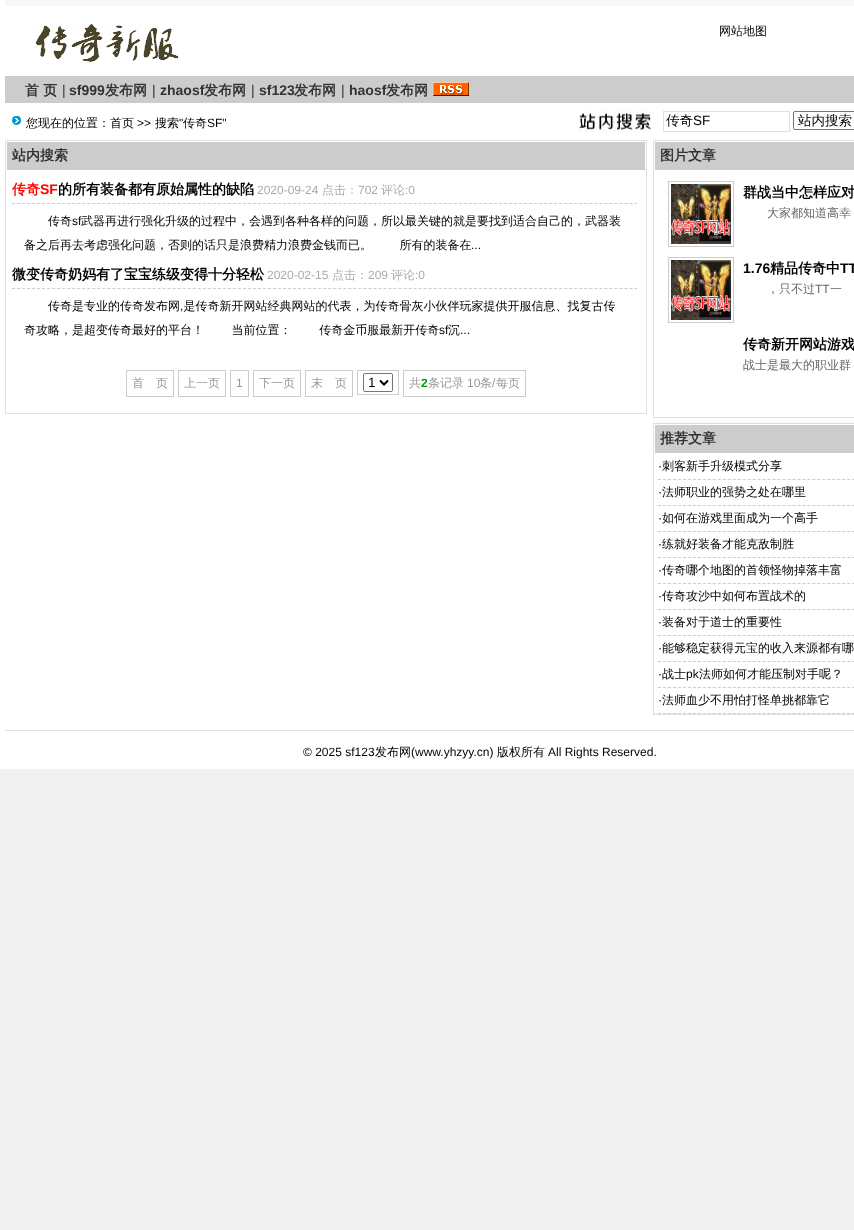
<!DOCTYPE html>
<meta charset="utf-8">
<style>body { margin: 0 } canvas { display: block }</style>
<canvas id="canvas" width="854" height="1230"></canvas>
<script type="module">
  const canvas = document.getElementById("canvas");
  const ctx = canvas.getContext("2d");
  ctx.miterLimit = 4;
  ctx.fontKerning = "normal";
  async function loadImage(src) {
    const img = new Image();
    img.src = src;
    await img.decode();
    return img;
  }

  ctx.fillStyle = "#f1f1f1";
  ctx.fillRect(0, 0, 854, 1230);
  ctx.fillStyle = "#ffffff";
  ctx.fillRect(0, 0, 854, 769);
  ctx.fillStyle = "#f7f7f7";
  ctx.fillRect(5, 0, 849, 6);
  ctx.drawImage(await loadImage("img1.png"), 35, 24, 144, 38);
  ctx.font = "500 12px WenQuanYi Zen Hei";
  ctx.fillStyle = "#000000";
  ctx.fillText("网站地图", 719, 35);
  ctx.fillStyle = "#cccccc";
  ctx.fillRect(5, 76, 849, 27);
  ctx.font = "bold 14px WenQuanYi Zen Hei";
  ctx.fillStyle = "#333333";
  ctx.fillText("首 页", 25, 95);
  ctx.font = "14px Liberation Sans";
  ctx.fillText("|", 62, 95);
  ctx.font = "bold 14px Liberation Sans";
  ctx.fillText("sf999", 69, 95);
  ctx.font = "bold 14px WenQuanYi Zen Hei";
  ctx.fillText("发布网", 105, 95);
  ctx.font = "14px Liberation Sans";
  ctx.fillText("|", 152, 95);
  ctx.font = "bold 14px Liberation Sans";
  ctx.fillText("zhaosf", 160, 95);
  ctx.font = "bold 14px WenQuanYi Zen Hei";
  ctx.fillText("发布网", 204, 95);
  ctx.font = "14px Liberation Sans";
  ctx.fillText("|", 251, 95);
  ctx.font = "bold 14px Liberation Sans";
  ctx.fillText("sf123", 259, 95);
  ctx.font = "bold 14px WenQuanYi Zen Hei";
  ctx.fillText("发布网", 294, 95);
  ctx.font = "14px Liberation Sans";
  ctx.fillText("|", 341, 95);
  ctx.font = "bold 14px Liberation Sans";
  ctx.fillText("haosf", 349, 95);
  ctx.font = "bold 14px WenQuanYi Zen Hei";
  ctx.fillText("发布网", 386, 95);
  ctx.drawImage(await loadImage("img2.png"), 433, 82, 36, 14);
  ctx.drawImage(await loadImage("img3.png"), 12, 116, 9, 9);
  ctx.font = "500 12px WenQuanYi Zen Hei";
  ctx.fillStyle = "#000000";
  ctx.fillText("您现在的位置：首页", 26, 127);
  ctx.font = "12px Liberation Sans";
  ctx.fillText(">>", 137, 127);
  ctx.font = "500 12px WenQuanYi Zen Hei";
  ctx.fillText("搜索", 155, 127);
  ctx.font = "12px Liberation Sans";
  ctx.fillText("\"", 179, 127);
  ctx.font = "500 12px WenQuanYi Zen Hei";
  ctx.fillText("传奇", 183, 127);
  ctx.font = "12px Liberation Sans";
  ctx.fillText("SF\"", 207, 127);
  ctx.drawImage(await loadImage("img4.png"), 579, 110, 72, 22);
  ctx.strokeStyle = "#dfdfdf";
  ctx.strokeRect(663.5, 111.5, 126, 20);
  ctx.font = "500 13.5px WenQuanYi Zen Hei";
  ctx.fillText("传奇", 666, 125);
  ctx.font = "13.5px Liberation Sans";
  ctx.fillText("SF", 693, 125);
  ctx.beginPath();
  ctx.roundRect(793.5, 111.5, 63, 18, 1.5);
  ctx.strokeStyle = "#767676";
  ctx.stroke();
  ctx.font = "500 13.5px WenQuanYi Zen Hei";
  ctx.fillText("站内搜索", 798, 125);
  ctx.strokeStyle = "#dfdfdf";
  ctx.strokeRect(5.5, 140.5, 641, 273);
  ctx.fillStyle = "#cccccc";
  ctx.fillRect(7, 142, 638, 28);
  ctx.font = "bold 14px WenQuanYi Zen Hei";
  ctx.fillStyle = "#333333";
  ctx.fillText("站内搜索", 12, 160);
  ctx.beginPath();
  ctx.moveTo(12, 203.5);
  ctx.lineTo(637, 203.5);
  ctx.strokeStyle = "#cccccc";
  ctx.setLineDash([3, 2.02]);
  ctx.stroke();
  ctx.fillStyle = "#ff0000";
  ctx.fillText("传奇", 12, 194);
  ctx.font = "bold 14px Liberation Sans";
  ctx.fillText("SF", 40, 194);
  ctx.font = "bold 14px WenQuanYi Zen Hei";
  ctx.fillStyle = "#000000";
  ctx.fillText("的所有装备都有原始属性的缺陷", 58, 194);
  ctx.font = "12px Liberation Sans";
  ctx.fillStyle = "#aaaaaa";
  ctx.fillText("2020-09-24", 257, 194);
  ctx.font = "500 12px WenQuanYi Zen Hei";
  ctx.fillText("点击：", 322, 194);
  ctx.font = "12px Liberation Sans";
  ctx.fillText("702", 358, 194);
  ctx.font = "500 12px WenQuanYi Zen Hei";
  ctx.fillText("评论", 381, 194);
  ctx.font = "12px Liberation Sans";
  ctx.fillText(":0", 405, 194);
  ctx.font = "500 12px WenQuanYi Zen Hei";
  ctx.fillStyle = "#000000";
  ctx.fillText("传奇", 48, 225);
  ctx.font = "12px Liberation Sans";
  ctx.fillText("sf", 72, 225);
  ctx.font = "500 12px WenQuanYi Zen Hei";
  ctx.fillText("武器再进行强化升级的过程中，会遇到各种各样的问题，所以最关键的就是要找到适合自己的，武器装", 81, 225);
  ctx.fillText("备之后再去考虑强化问题，否则的话只是浪费精力浪费金钱而已。 　　所有的装备在", 24, 249);
  ctx.font = "12px Liberation Sans";
  ctx.fillText("...", 471, 249);
  ctx.beginPath();
  ctx.moveTo(12, 288.5);
  ctx.lineTo(637, 288.5);
  ctx.stroke();
  ctx.font = "bold 14px WenQuanYi Zen Hei";
  ctx.fillText("微变传奇奶妈有了宝宝练级变得十分轻松", 12, 279);
  ctx.font = "12px Liberation Sans";
  ctx.fillStyle = "#aaaaaa";
  ctx.fillText("2020-02-15", 267, 279);
  ctx.font = "500 12px WenQuanYi Zen Hei";
  ctx.fillText("点击：", 332, 279);
  ctx.font = "12px Liberation Sans";
  ctx.fillText("209", 368, 279);
  ctx.font = "500 12px WenQuanYi Zen Hei";
  ctx.fillText("评论", 391, 279);
  ctx.font = "12px Liberation Sans";
  ctx.fillText(":0", 415, 279);
  ctx.font = "500 12px WenQuanYi Zen Hei";
  ctx.fillStyle = "#000000";
  ctx.fillText("传奇是专业的传奇发布网 是传奇新开网站经典网站的代表，为传奇骨灰小伙伴玩家提供开服信息、找复古传", 48, 310);
  ctx.font = "12px Liberation Sans";
  ctx.fillText(",", 180, 310);
  ctx.font = "500 12px WenQuanYi Zen Hei";
  ctx.fillText("奇攻略，是超变传奇最好的平台！ 　　当前位置： 　　传奇金币服最新开传奇", 24, 334);
  ctx.font = "12px Liberation Sans";
  ctx.fillText("sf", 439, 334);
  ctx.font = "500 12px WenQuanYi Zen Hei";
  ctx.fillText("沉", 448, 334);
  ctx.font = "12px Liberation Sans";
  ctx.fillText("...", 460, 334);
  ctx.setLineDash([]);
  ctx.strokeRect(126.5, 370.5, 47, 26);
  ctx.font = "500 12px WenQuanYi Zen Hei";
  ctx.fillStyle = "#999999";
  ctx.fillText("首　页", 132, 387);
  ctx.strokeRect(178.5, 370.5, 47, 26);
  ctx.fillText("上一页", 184, 387);
  ctx.strokeRect(230.5, 370.5, 18, 26);
  ctx.font = "12px Liberation Sans";
  ctx.fillText("1", 236, 387);
  ctx.strokeRect(253.5, 370.5, 47, 26);
  ctx.font = "500 12px WenQuanYi Zen Hei";
  ctx.fillText("下一页", 259, 387);
  ctx.strokeRect(305.5, 370.5, 47, 26);
  ctx.fillText("末　页", 311, 387);
  ctx.strokeRect(357.5, 370.5, 41, 24);
  ctx.beginPath();
  ctx.roundRect(363.5, 373.5, 29, 18, 1.5);
  ctx.strokeStyle = "#767676";
  ctx.stroke();
  ctx.beginPath();
  ctx.moveTo(380, 380.5);
  ctx.lineTo(384, 384.5);
  ctx.lineTo(388, 380.5);
  ctx.strokeStyle = "#000000";
  ctx.lineWidth = 2;
  ctx.stroke();
  ctx.font = "13.5px Liberation Sans";
  ctx.fillStyle = "#000000";
  ctx.fillText("1", 368, 387);
  ctx.strokeStyle = "#cccccc";
  ctx.lineWidth = 1;
  ctx.strokeRect(403.5, 370.5, 122, 26);
  ctx.font = "500 12px WenQuanYi Zen Hei";
  ctx.fillStyle = "#999999";
  ctx.fillText("共", 409, 387);
  ctx.font = "bold 12px Liberation Sans";
  ctx.fillStyle = "#009900";
  ctx.fillText("2", 421, 387);
  ctx.font = "500 12px WenQuanYi Zen Hei";
  ctx.fillStyle = "#999999";
  ctx.fillText("条记录", 428, 387);
  ctx.font = "12px Liberation Sans";
  ctx.fillText("10", 467, 387);
  ctx.font = "500 12px WenQuanYi Zen Hei";
  ctx.fillText("条", 480, 387);
  ctx.font = "12px Liberation Sans";
  ctx.fillText("/", 492, 387);
  ctx.font = "500 12px WenQuanYi Zen Hei";
  ctx.fillText("每页", 496, 387);
  ctx.strokeStyle = "#dfdfdf";
  ctx.strokeRect(653.5, 140.5, 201, 277);
  ctx.fillStyle = "#cccccc";
  ctx.fillRect(655, 142, 199, 28);
  ctx.font = "bold 14px WenQuanYi Zen Hei";
  ctx.fillStyle = "#333333";
  ctx.fillText("图片文章", 660, 160);
  ctx.strokeStyle = "#cccccc";
  ctx.strokeRect(668.5, 181.5, 65, 65);
  ctx.drawImage(await loadImage("img5.png"), 671, 184, 60, 60);
  ctx.fillStyle = "#000000";
  ctx.fillText("群战当中怎样应对", 743, 197);
  ctx.font = "500 12px WenQuanYi Zen Hei";
  ctx.fillStyle = "#666666";
  ctx.fillText("大家都知道高幸", 767, 217);
  ctx.strokeRect(668.5, 257.5, 65, 65);
  ctx.drawImage(await loadImage("img5.png"), 671, 260, 60, 60);
  ctx.font = "bold 14px Liberation Sans";
  ctx.fillStyle = "#000000";
  ctx.fillText("1.76", 743, 273);
  ctx.font = "bold 14px WenQuanYi Zen Hei";
  ctx.fillText("精品传奇中", 770, 273);
  ctx.font = "bold 14px Liberation Sans";
  ctx.fillText("TT", 840, 273);
  ctx.font = "500 12px WenQuanYi Zen Hei";
  ctx.fillStyle = "#666666";
  ctx.fillText("，只不过", 767, 293);
  ctx.font = "12px Liberation Sans";
  ctx.fillText("TT", 815, 293);
  ctx.font = "500 12px WenQuanYi Zen Hei";
  ctx.fillText("一", 830, 293);
  ctx.font = "bold 14px WenQuanYi Zen Hei";
  ctx.fillStyle = "#000000";
  ctx.fillText("传奇新开网站游戏", 743, 349);
  ctx.font = "500 12px WenQuanYi Zen Hei";
  ctx.fillStyle = "#666666";
  ctx.fillText("战士是最大的职业群", 743, 369);
  ctx.strokeStyle = "#dfdfdf";
  ctx.strokeRect(653.5, 423.5, 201, 291);
  ctx.fillStyle = "#cccccc";
  ctx.fillRect(655, 425, 199, 28);
  ctx.font = "bold 14px WenQuanYi Zen Hei";
  ctx.fillStyle = "#333333";
  ctx.fillText("推荐文章", 660, 443);
  ctx.beginPath();
  ctx.moveTo(658, 479.5);
  ctx.lineTo(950, 479.5);
  ctx.strokeStyle = "#cccccc";
  ctx.setLineDash([3, 1.98]);
  ctx.stroke();
  ctx.font = "12px Liberation Sans";
  ctx.fillStyle = "#000000";
  ctx.fillText("·", 658, 470);
  ctx.font = "500 12px WenQuanYi Zen Hei";
  ctx.fillText("刺客新手升级模式分享", 662, 470);
  ctx.beginPath();
  ctx.moveTo(658, 505.5);
  ctx.lineTo(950, 505.5);
  ctx.stroke();
  ctx.font = "12px Liberation Sans";
  ctx.fillText("·", 658, 496);
  ctx.font = "500 12px WenQuanYi Zen Hei";
  ctx.fillText("法师职业的强势之处在哪里", 662, 496);
  ctx.beginPath();
  ctx.moveTo(658, 531.5);
  ctx.lineTo(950, 531.5);
  ctx.stroke();
  ctx.font = "12px Liberation Sans";
  ctx.fillText("·", 658, 522);
  ctx.font = "500 12px WenQuanYi Zen Hei";
  ctx.fillText("如何在游戏里面成为一个高手", 662, 522);
  ctx.beginPath();
  ctx.moveTo(658, 557.5);
  ctx.lineTo(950, 557.5);
  ctx.stroke();
  ctx.font = "12px Liberation Sans";
  ctx.fillText("·", 658, 548);
  ctx.font = "500 12px WenQuanYi Zen Hei";
  ctx.fillText("练就好装备才能克敌制胜", 662, 548);
  ctx.beginPath();
  ctx.moveTo(658, 583.5);
  ctx.lineTo(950, 583.5);
  ctx.stroke();
  ctx.font = "12px Liberation Sans";
  ctx.fillText("·", 658, 574);
  ctx.font = "500 12px WenQuanYi Zen Hei";
  ctx.fillText("传奇哪个地图的首领怪物掉落丰富", 662, 574);
  ctx.beginPath();
  ctx.moveTo(658, 609.5);
  ctx.lineTo(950, 609.5);
  ctx.stroke();
  ctx.font = "12px Liberation Sans";
  ctx.fillText("·", 658, 600);
  ctx.font = "500 12px WenQuanYi Zen Hei";
  ctx.fillText("传奇攻沙中如何布置战术的", 662, 600);
  ctx.beginPath();
  ctx.moveTo(658, 635.5);
  ctx.lineTo(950, 635.5);
  ctx.stroke();
  ctx.font = "12px Liberation Sans";
  ctx.fillText("·", 658, 626);
  ctx.font = "500 12px WenQuanYi Zen Hei";
  ctx.fillText("装备对于道士的重要性", 662, 626);
  ctx.beginPath();
  ctx.moveTo(658, 661.5);
  ctx.lineTo(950, 661.5);
  ctx.stroke();
  ctx.font = "12px Liberation Sans";
  ctx.fillText("·", 658, 652);
  ctx.font = "500 12px WenQuanYi Zen Hei";
  ctx.fillText("能够稳定获得元宝的收入来源都有哪", 662, 652);
  ctx.beginPath();
  ctx.moveTo(658, 687.5);
  ctx.lineTo(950, 687.5);
  ctx.stroke();
  ctx.font = "12px Liberation Sans";
  ctx.fillText("·", 658, 678);
  ctx.font = "500 12px WenQuanYi Zen Hei";
  ctx.fillText("战士", 662, 678);
  ctx.font = "12px Liberation Sans";
  ctx.fillText("pk", 686, 678);
  ctx.font = "500 12px WenQuanYi Zen Hei";
  ctx.fillText("法师如何才能压制对手呢？", 699, 678);
  ctx.beginPath();
  ctx.moveTo(658, 713.5);
  ctx.lineTo(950, 713.5);
  ctx.stroke();
  ctx.font = "12px Liberation Sans";
  ctx.fillText("·", 658, 704);
  ctx.font = "500 12px WenQuanYi Zen Hei";
  ctx.fillText("法师血少不用怕打怪单挑都靠它", 662, 704);
  ctx.fillStyle = "#dfdfdf";
  ctx.fillRect(5, 730, 849, 1);
  ctx.font = "12px Liberation Sans";
  ctx.fillStyle = "#000000";
  ctx.fillText("© 2025 sf123", 303, 756);
  ctx.font = "500 12px WenQuanYi Zen Hei";
  ctx.fillText("发布网", 375, 756);
  ctx.font = "12px Liberation Sans";
  ctx.fillText("(www.yhzyy.cn)", 411, 756);
  ctx.font = "500 12px WenQuanYi Zen Hei";
  ctx.fillText("版权所有", 497, 756);
  ctx.font = "12px Liberation Sans";
  ctx.fillText("All Rights Reserved.", 548, 756);
</script>
